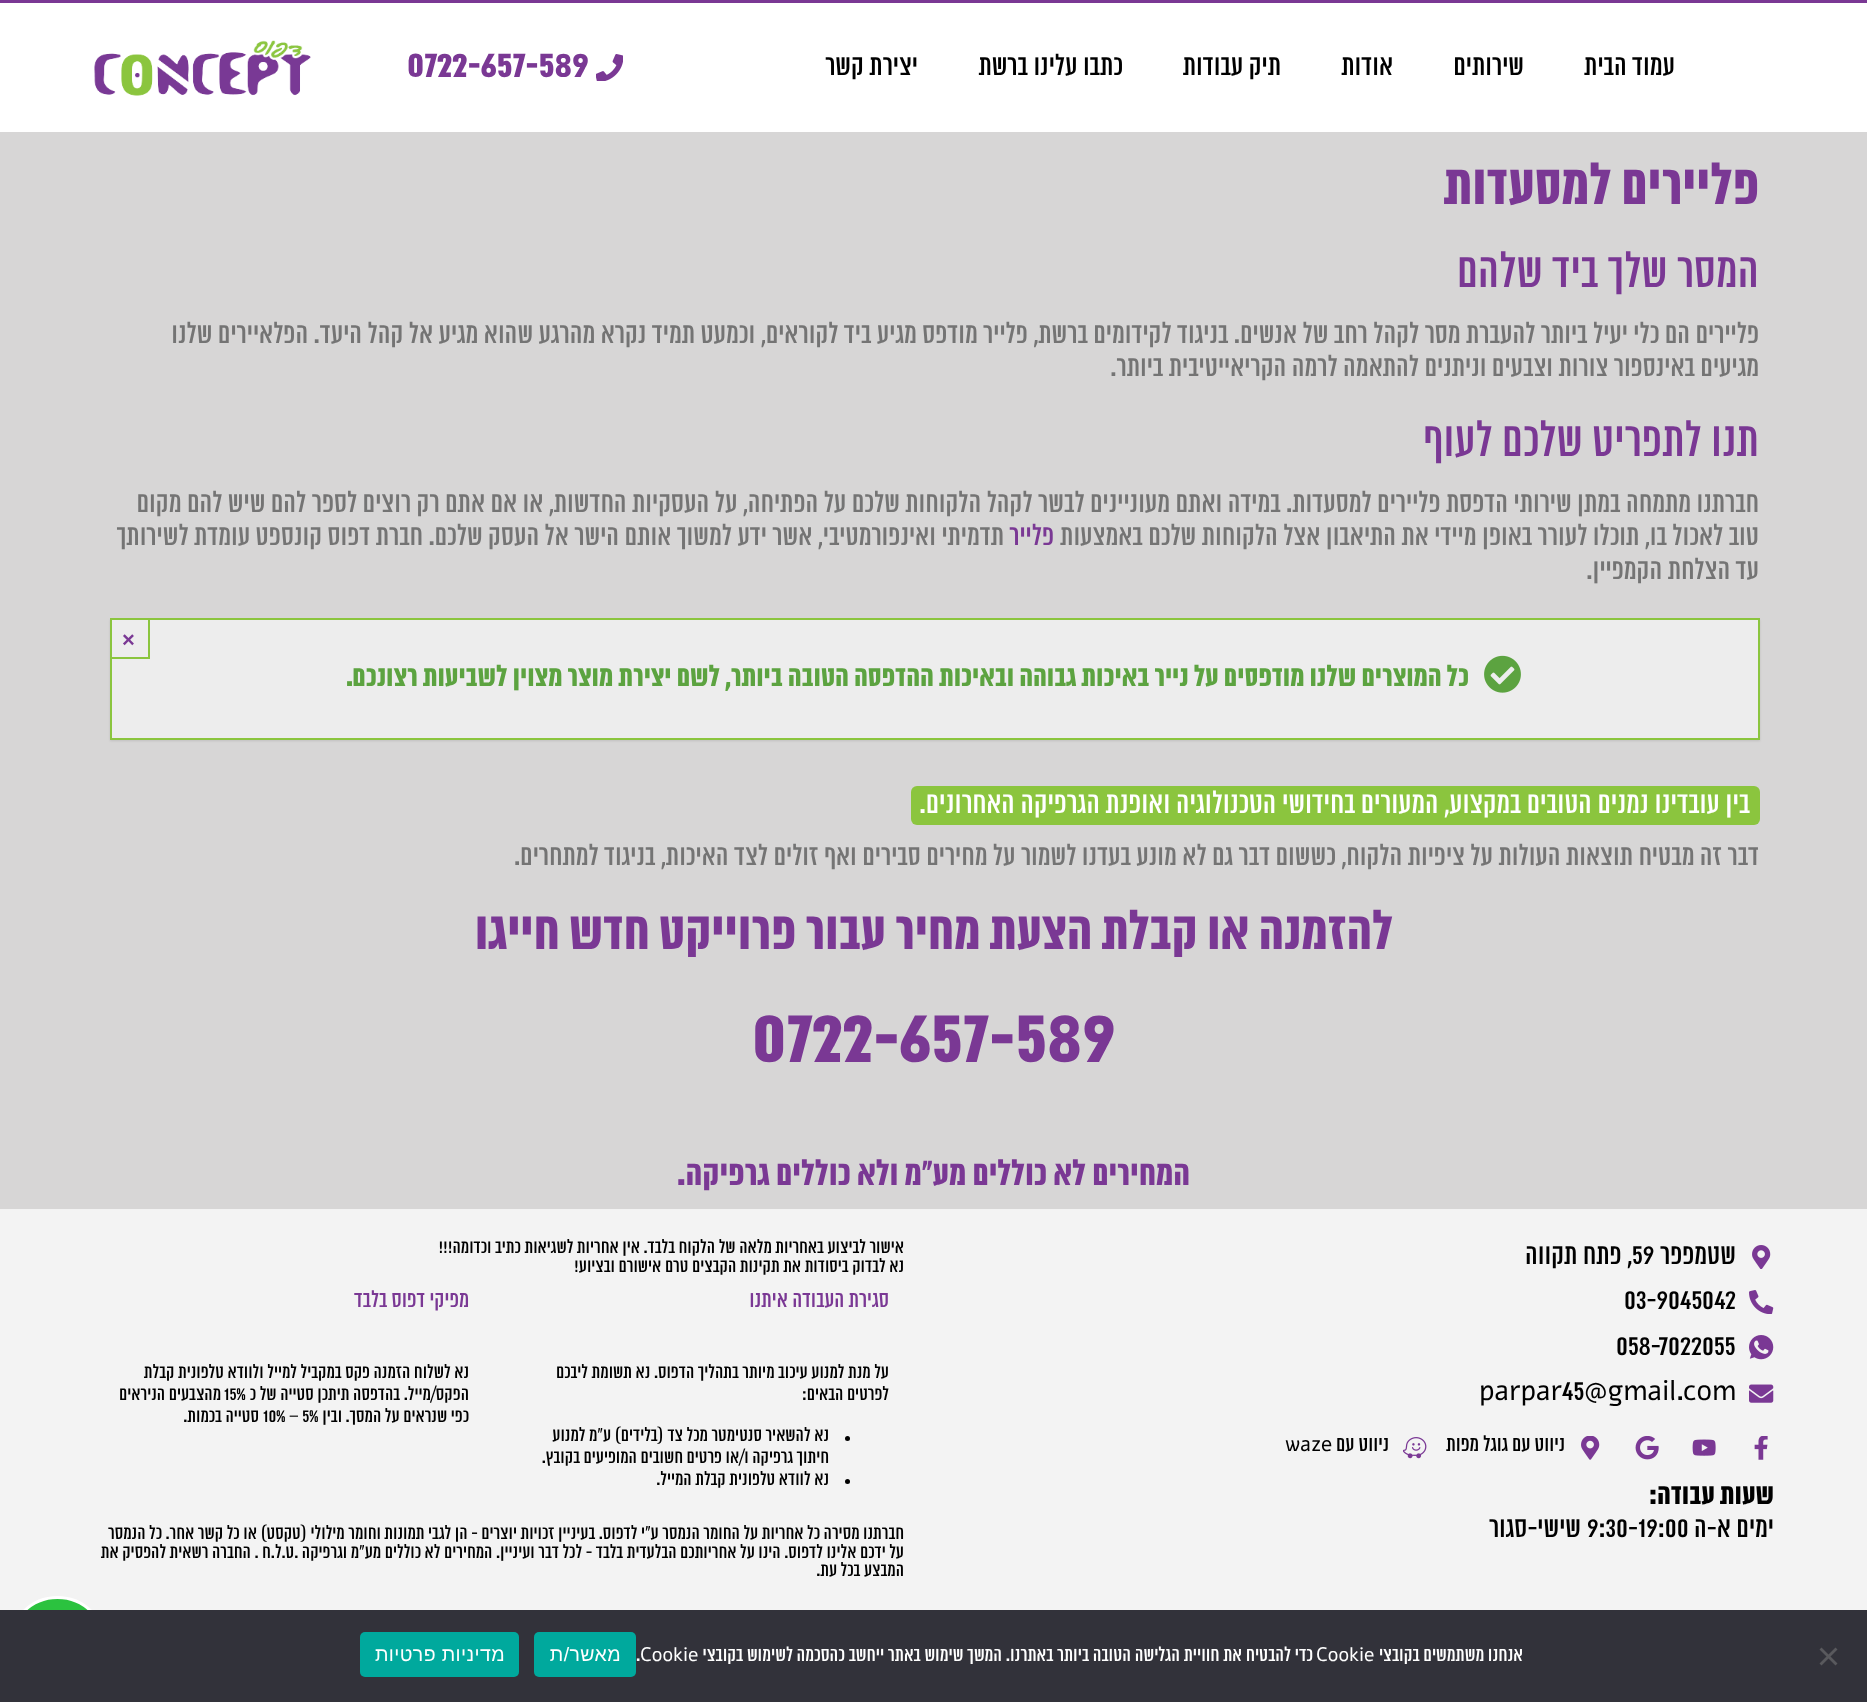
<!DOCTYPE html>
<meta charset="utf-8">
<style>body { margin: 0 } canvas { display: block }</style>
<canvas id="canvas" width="1867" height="1702"></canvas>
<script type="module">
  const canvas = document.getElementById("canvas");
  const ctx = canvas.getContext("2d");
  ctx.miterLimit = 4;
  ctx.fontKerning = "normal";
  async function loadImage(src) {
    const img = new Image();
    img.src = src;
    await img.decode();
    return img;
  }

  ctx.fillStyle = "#d7d6d6";
  ctx.fillRect(0, 0, 1867, 1702);
  ctx.fillStyle = "#ffffff";
  ctx.fillRect(0, 3, 1867, 129);
  ctx.fillStyle = "#7a3894";
  ctx.fillRect(0, 0, 1867, 3);
  ctx.direction = "rtl";
  ctx.font = "28.5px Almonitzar";
  ctx.fillStyle = "#000000";
  ctx.fillText("עמוד הבית", 1675, 75);
  ctx.fillText("שירותים", 1524, 75);
  ctx.fillText("אודות", 1393, 75);
  ctx.fillText("תיק עבודות", 1281, 75);
  ctx.fillText("כתבו עלינו ברשת", 1123, 75);
  ctx.fillText("יצירת קשר", 918, 75);
  ctx.drawImage(await loadImage("img1.png"), 596, 54, 27, 27);
  ctx.direction = "ltr";
  ctx.font = "bold 37.5px Almonitzar";
  ctx.fillStyle = "#7a3894";
  ctx.fillText("0722-657-589", 407, 77);
  ctx.drawImage(await loadImage("img2.png"), 94, 40, 217, 56);
  ctx.direction = "rtl";
  ctx.font = "bold 55.5px Almonitzar";
  ctx.fillText("פליירים למסעדות", 1759, 204);
  ctx.font = "48px Almonitzar";
  ctx.fillText("המסר שלך ביד שלהם", 1759, 287);
  ctx.font = "28.5px Almonitzar";
  ctx.fillStyle = "#747474";
  ctx.fillText("פליירים הם כלי יעיל ביותר להעברת מסר לקהל רחב של אנשים. בניגוד לקידומים ברשת, פלייר מודפס מגיע ביד לקוראים, וכמעט תמיד נקרא מהרגע שהוא מגיע אל קהל היעד. הפלאיירים שלנו", 1759, 343);
  ctx.fillText("מגיעים באינספור צורות וצבעים וניתנים להתאמה לרמה הקריאייטיבית ביותר.", 1759, 376);
  ctx.font = "48px Almonitzar";
  ctx.fillStyle = "#7a3894";
  ctx.fillText("תנו לתפריט שלכם לעוף", 1759, 456);
  ctx.font = "28.5px Almonitzar";
  ctx.fillStyle = "#747474";
  ctx.fillText("חברתנו מתמחה במתן שירותי הדפסת פליירים למסעדות. במידה ואתם מעוניינים לבשר לקהל הלקוחות שלכם על הפתיחה, על העסקיות החדשות, או אם אתם רק רוצים לספר להם שיש להם מקום", 1759, 512);
  ctx.fillText("טוב לאכול בו, תוכלו לעורר באופן מיידי את התיאבון אצל הלקוחות שלכם באמצעות", 1759, 545);
  ctx.fillStyle = "#7a3894";
  ctx.fillText("פלייר", 1054, 545);
  ctx.fillStyle = "#747474";
  ctx.fillText("תדמיתי ואינפורמטיבי, אשר ידע למשוך אותם הישר אל העסק שלכם. חברת דפוס קונספט עומדת לשירותך", 1004, 545);
  ctx.fillText("עד הצלחת הקמפיין.", 1759, 579);
  ctx.fillStyle = "rgba(0, 0, 0, 0.1)";
  ctx.filter = "blur(1px)";
  ctx.beginPath();
  ctx.rect(110, 620, 1650, 121);
  ctx.fill();
  ctx.filter = "none";
  ctx.fillStyle = "#ededed";
  ctx.beginPath();
  ctx.rect(111, 619, 1648, 120);
  ctx.fill();
  ctx.strokeStyle = "#8bc53e";
  ctx.lineWidth = 2;
  ctx.stroke();
  ctx.strokeRect(111, 619, 38, 39);
  ctx.direction = "ltr";
  ctx.font = "bold 22px Liberation Sans";
  ctx.fillStyle = "#7a3894";
  ctx.fillText("×", 122, 647);
  ctx.drawImage(await loadImage("img3.png"), 1484, 655, 37, 38);
  ctx.direction = "rtl";
  ctx.font = "bold 28.5px Almonitzar";
  ctx.fillStyle = "#5ca340";
  ctx.fillText("כל המוצרים שלנו מודפסים על נייר באיכות גבוהה ובאיכות ההדפסה הטובה ביותר,", 1469, 686);
  ctx.fillText("לשם יצירת מוצר מצוין לשביעות רצונכם", 720, 686);
  ctx.direction = "ltr";
  ctx.fillText(".", 346, 686);
  ctx.fillStyle = "#8bc53e";
  ctx.beginPath();
  ctx.roundRect(911, 786, 849, 39, 6);
  ctx.fill();
  ctx.direction = "rtl";
  ctx.font = "30px Almonitzar";
  ctx.fillStyle = "#ffffff";
  ctx.fillText("בין עובדינו נמנים הטובים במקצוע, המעורים בחידושי הטכנולוגיה ואופנת הגרפיקה האחרונים.", 1750, 813);
  ctx.font = "28.5px Almonitzar";
  ctx.fillStyle = "#747474";
  ctx.fillText("דבר זה מבטיח תוצאות העולות על ציפיות הלקוח, כששום דבר גם לא מונע בעדנו לשמור על מחירים סבירים ואף זולים לצד האיכות, בניגוד למתחרים.", 1759, 865);
  ctx.font = "bold 52.5px Almonitzar";
  ctx.fillStyle = "#7a3894";
  ctx.fillText("להזמנה או קבלת הצעת מחיר עבור פרוייקט חדש חייגו", 1393, 949);
  ctx.direction = "ltr";
  ctx.font = "bold 75px Almonitzar";
  ctx.fillText("0722-657-589", 752, 1062);
  ctx.direction = "rtl";
  ctx.font = "bold 34.5px Almonitzar";
  ctx.fillText("המחירים לא כוללים מע\"מ ולא כוללים גרפיקה.", 1190, 1185);
  ctx.fillStyle = "#f3f3f3";
  ctx.fillRect(0, 1209, 1867, 401);
  ctx.drawImage(await loadImage("img4.png"), 1752, 1245, 19, 24);
  ctx.font = "28.5px Almonitzar";
  ctx.fillStyle = "#000000";
  ctx.fillText("שטמפפר", 1736, 1264);
  ctx.direction = "ltr";
  ctx.fillText("59", 1632, 1264);
  ctx.direction = "rtl";
  ctx.fillText(", פתח תקווה", 1632, 1264);
  ctx.drawImage(await loadImage("img5.png"), 1749, 1290, 25, 24);
  ctx.direction = "ltr";
  ctx.fillText("03-9045042", 1624, 1309);
  ctx.drawImage(await loadImage("img6.png"), 1749, 1335, 25, 25);
  ctx.fillText("058-7022055", 1616, 1355);
  ctx.drawImage(await loadImage("img7.png"), 1749, 1384, 25, 19);
  ctx.font = "28.5px Alef";
  ctx.fillText("com", 1683, 1400);
  ctx.font = "28.5px Almonitzar";
  ctx.fillText(".", 1677, 1400);
  ctx.font = "28.5px Alef";
  ctx.fillText("@gmail", 1584, 1400);
  ctx.font = "28.5px Almonitzar";
  ctx.fillText("45", 1562, 1400);
  ctx.font = "28.5px Alef";
  ctx.fillText("parpar", 1479, 1400);
  ctx.drawImage(await loadImage("img8.png"), 1754, 1436, 14, 24);
  ctx.drawImage(await loadImage("img9.png"), 1692, 1439, 24, 17);
  ctx.drawImage(await loadImage("img10.png"), 1635, 1436, 24, 24);
  ctx.drawImage(await loadImage("img11.png"), 1581, 1436, 19, 24);
  ctx.direction = "rtl";
  ctx.font = "21px Almonitzar";
  ctx.fillText("ניווט עם גוגל מפות", 1565, 1451);
  ctx.drawImage(await loadImage("img12.png"), 1403, 1437, 24, 22);
  ctx.fillText("ניווט עם", 1389, 1451);
  ctx.direction = "ltr";
  ctx.font = "21px Alef";
  ctx.fillText("waze", 1285, 1451);
  ctx.direction = "rtl";
  ctx.font = "bold 28.5px Almonitzar";
  ctx.fillText("שעות עבודה:", 1774, 1504);
  ctx.font = "28.5px Almonitzar";
  ctx.fillText("ימים א-ה", 1774, 1537);
  ctx.direction = "ltr";
  ctx.fillText("9:30-19:00", 1587, 1537);
  ctx.direction = "rtl";
  ctx.fillText("שישי-סגור", 1581, 1537);
  ctx.font = "18.65px Almonitzar";
  ctx.fillText("אישור לביצוע באחריות מלאה של הלקוח בלבד. אין אחריות לשגיאות כתיב וכדומה!!!", 904, 1253);
  ctx.fillText("נא לבדוק ביסודות את תקינות הקבצים טרם אישורם ובציוע!", 904, 1272);
  ctx.font = "22.5px Almonitzar";
  ctx.fillStyle = "#7a3894";
  ctx.fillText("סגירת העבודה איתנו", 889, 1307);
  ctx.font = "18.65px Almonitzar";
  ctx.fillStyle = "#000000";
  ctx.fillText("על מנת למנוע עיכוב מיותר בתהליך הדפוס. נא תשומת ליבכם", 889, 1378);
  ctx.fillText("לפרטים הבאים:", 889, 1400);
  ctx.beginPath();
  ctx.arc(847.5, 1438.5, 2.5, 0, Math.PI * 2);
  ctx.fill();
  ctx.fillText("נא להשאיר סנטימטר מכל צד (בלידים) ע״מ למנוע", 829, 1441);
  ctx.fillText("חיתוך גרפיקה ו/או פרטים חשובים המופיעים בקובץ.", 829, 1463);
  ctx.beginPath();
  ctx.arc(847.5, 1481.5, 2.5, 0, Math.PI * 2);
  ctx.fill();
  ctx.fillText("נא לוודא טלפונית קבלת המייל.", 829, 1485);
  ctx.font = "22.5px Almonitzar";
  ctx.fillStyle = "#7a3894";
  ctx.fillText("מפיקי דפוס בלבד", 469, 1307);
  ctx.font = "18.65px Almonitzar";
  ctx.fillStyle = "#000000";
  ctx.fillText("נא לשלוח הזמנה פקס במקביל למייל ולוודא טלפונית קבלת", 469, 1378);
  ctx.fillText("הפקס/מייל. בהדפסה תיתכן סטייה של כ", 469, 1400);
  ctx.direction = "ltr";
  ctx.fillText("15%", 224, 1400);
  ctx.direction = "rtl";
  ctx.fillText("מהצבעים הניראים", 221, 1400);
  ctx.fillText("כפי שנראים על המסך. ובין", 469, 1422);
  ctx.direction = "ltr";
  ctx.fillText("10% – 5%", 263, 1422);
  ctx.direction = "rtl";
  ctx.fillText("סטייה בכמות.", 259, 1422);
  ctx.fillText("חברתנו מסירה כל אחריות על החומר הנמסר ע״י לדפוס. בעיניין זכויות יוצרים - הן לגבי תמונות וחומר מילולי (טקסט) או כל קשר אחר. כל הנמסר", 904, 1539);
  ctx.fillText("על ידכם אלינו לדפוס. הינו על אחריותכם הבלעדית בלבד - לכל דבר ועיניין. המחירים לא כוללים מע״מ וגרפיקה .ט.ל.ח . החברה רשאית להפסיק את", 904, 1558);
  ctx.fillText("המבצע בכל עת.", 904, 1576);
  ctx.fillStyle = "#2bc23f";
  ctx.beginPath();
  ctx.arc(57.5, 1645.5, 48, 0, Math.PI * 2);
  ctx.fill();
  ctx.strokeStyle = "#ffffff";
  ctx.lineWidth = 3;
  ctx.stroke();
  ctx.fillStyle = "#32323a";
  ctx.fillRect(0, 1610, 1867, 92);
  ctx.fillStyle = "#59595d";
  ctx.beginPath();
  ctx.moveTo(1835.5, 1647.5);
  ctx.lineTo(1837.5, 1649.5);
  ctx.lineTo(1821.5, 1665.5);
  ctx.lineTo(1819.5, 1663.5);
  ctx.closePath();
  ctx.fill();
  ctx.beginPath();
  ctx.moveTo(1819.5, 1649.5);
  ctx.lineTo(1821.5, 1647.5);
  ctx.lineTo(1837.5, 1663.5);
  ctx.lineTo(1835.5, 1665.5);
  ctx.closePath();
  ctx.fill();
  ctx.font = "19.5px Almonitzar";
  ctx.fillStyle = "#ffffff";
  ctx.fillText("אנחנו משתמשים בקובצי", 1523, 1661);
  ctx.direction = "ltr";
  ctx.font = "19.5px Alef";
  ctx.fillText("Cookie", 1316, 1661);
  ctx.direction = "rtl";
  ctx.font = "19.5px Almonitzar";
  ctx.fillText("כדי להבטיח את חוויית הגלישה הטובה ביותר באתרנו. המשך שימוש באתר ייחשב כהסכמה לשימוש בקובצי", 1313, 1661);
  ctx.direction = "ltr";
  ctx.font = "19.5px Alef";
  ctx.fillText("Cookie", 640, 1661);
  ctx.font = "19.5px Almonitzar";
  ctx.fillText(".", 636, 1661);
  ctx.fillStyle = "#00a99d";
  ctx.beginPath();
  ctx.roundRect(534, 1632, 102, 45, 5);
  ctx.fill();
  ctx.letterSpacing = "0.4px";
  ctx.direction = "rtl";
  ctx.font = "19.5px Liberation Sans";
  ctx.fillStyle = "#ffffff";
  ctx.fillText("מאשר/ת", 621, 1661);
  ctx.fillStyle = "#00a99d";
  ctx.beginPath();
  ctx.roundRect(360, 1632, 159, 45, 5);
  ctx.fill();
  ctx.fillStyle = "#ffffff";
  ctx.fillText("מדיניות פרטיות", 505, 1661);
</script>
